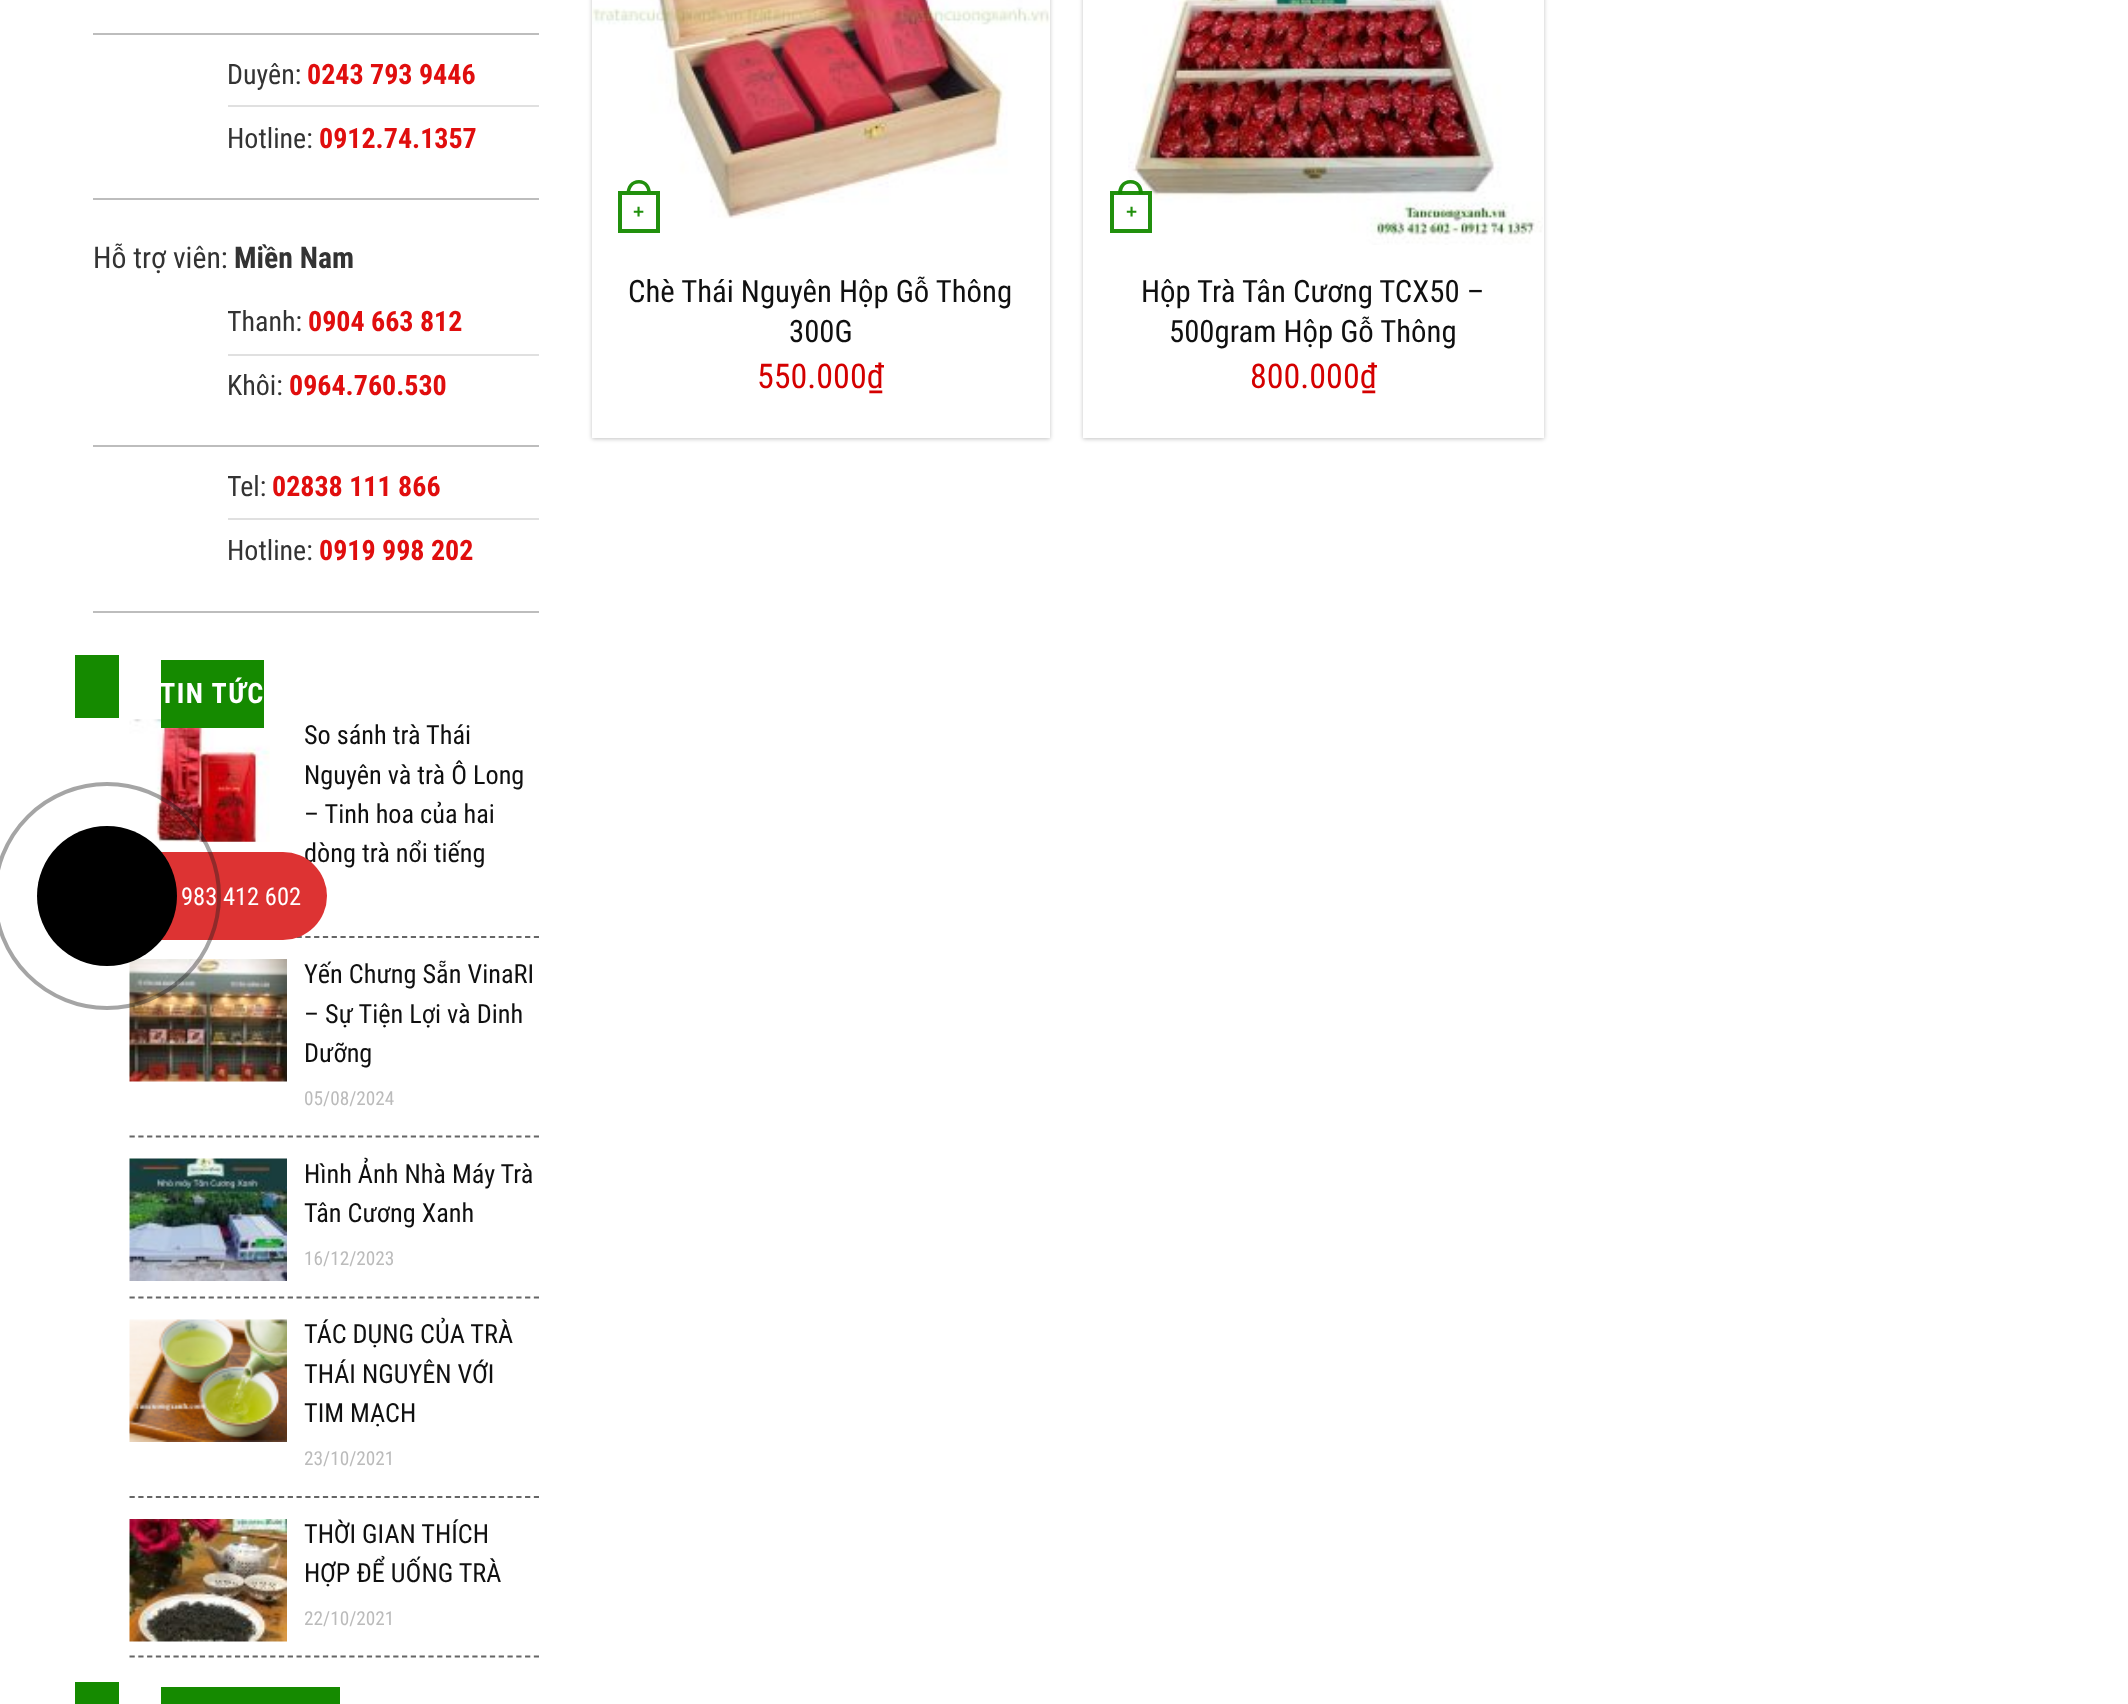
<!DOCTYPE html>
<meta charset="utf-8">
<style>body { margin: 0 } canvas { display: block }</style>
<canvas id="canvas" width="2128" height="1704"></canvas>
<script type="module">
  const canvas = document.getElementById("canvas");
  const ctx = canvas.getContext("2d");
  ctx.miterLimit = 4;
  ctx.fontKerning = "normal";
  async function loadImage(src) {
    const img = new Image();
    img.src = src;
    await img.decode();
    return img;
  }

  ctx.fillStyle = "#ffffff";
  ctx.fillRect(0, 0, 2128, 1704);
  ctx.fillStyle = "#bdbdbd";
  ctx.fillRect(93, 33, 446, 2);
  ctx.fillRect(93, 198, 446, 2);
  ctx.fillStyle = "#e0e0e0";
  ctx.fillRect(228, 105, 311, 2);
  ctx.font = "28px Roboto Condensed";
  ctx.fillStyle = "#333333";
  ctx.fillText("Duyên:", 227, 84);
  ctx.font = "bold 28px Roboto Condensed";
  ctx.fillStyle = "#e00e0e";
  ctx.fillText("0243 793 9446", 307, 84);
  ctx.font = "28px Roboto Condensed";
  ctx.fillStyle = "#333333";
  ctx.fillText("Hotline:", 227, 148);
  ctx.font = "bold 28px Roboto Condensed";
  ctx.fillStyle = "#e00e0e";
  ctx.fillText("0912.74.1357", 319, 148);
  ctx.font = "29.75px Roboto Condensed";
  ctx.fillStyle = "#333333";
  ctx.fillText("Hỗ trợ viên:", 93, 268);
  ctx.font = "bold 29.75px Roboto Condensed";
  ctx.fillText("Miền Nam", 234, 268);
  ctx.fillStyle = "#bdbdbd";
  ctx.fillRect(93, 445, 446, 2);
  ctx.fillStyle = "#e0e0e0";
  ctx.fillRect(228, 354, 311, 2);
  ctx.save();
  ctx.beginPath();
  ctx.rect(228, 299, 311, 109);
  ctx.clip();
  ctx.font = "28px Roboto Condensed";
  ctx.fillStyle = "#333333";
  ctx.fillText("Thanh:", 227, 331);
  ctx.restore();
  ctx.font = "bold 28px Roboto Condensed";
  ctx.fillStyle = "#e00e0e";
  ctx.fillText("0904 663 812", 308, 331);
  ctx.font = "28px Roboto Condensed";
  ctx.fillStyle = "#333333";
  ctx.fillText("Khôi:", 227, 395);
  ctx.font = "bold 28px Roboto Condensed";
  ctx.fillStyle = "#e00e0e";
  ctx.fillText("0964.760.530", 289, 395);
  ctx.fillStyle = "#bdbdbd";
  ctx.fillRect(93, 611, 446, 2);
  ctx.fillStyle = "#e0e0e0";
  ctx.fillRect(228, 518, 311, 2);
  ctx.save();
  ctx.beginPath();
  ctx.rect(228, 464, 311, 110);
  ctx.clip();
  ctx.font = "28px Roboto Condensed";
  ctx.fillStyle = "#333333";
  ctx.fillText("Tel:", 227, 496);
  ctx.restore();
  ctx.fillStyle = "#e00e0e";
  ctx.fillText("02838 111 866", 272, 496);
  ctx.font = "28px Roboto Condensed";
  ctx.fillStyle = "#333333";
  ctx.fillText("Hotline:", 227, 560);
  ctx.font = "bold 28px Roboto Condensed";
  ctx.fillStyle = "#e00e0e";
  ctx.fillText("0919 998 202", 319, 560);
  ctx.drawImage(await loadImage("img1.png"), 129, 719, 141, 123);
  ctx.fillStyle = "#158a00";
  ctx.fillRect(161, 660, 103, 68);
  ctx.letterSpacing = "1.5px";
  ctx.fillStyle = "#ffffff";
  ctx.fillText("TIN TỨC", 160, 703);
  ctx.fillStyle = "#158a00";
  ctx.fillRect(75, 655, 44, 63);
  ctx.beginPath();
  ctx.moveTo(129.5, 937);
  ctx.lineTo(539, 937);
  ctx.strokeStyle = "#666666";
  ctx.lineWidth = 1.8;
  ctx.setLineDash([5.25, 3.54]);
  ctx.stroke();
  ctx.letterSpacing = "0px";
  ctx.font = "26.25px Roboto Condensed";
  ctx.fillStyle = "#101010";
  ctx.fillText("So sánh trà Thái", 304, 744);
  ctx.fillText("Nguyên và trà Ô Long", 304, 784);
  ctx.fillText("– Tinh hoa của hai", 304, 823);
  ctx.fillText("dòng trà nổi tiếng", 304, 862);
  ctx.beginPath();
  ctx.moveTo(129.5, 1136.5);
  ctx.lineTo(539, 1136.5);
  ctx.stroke();
  ctx.drawImage(await loadImage("img2.png"), 129, 959, 158, 123);
  ctx.fillText("Yến Chưng Sẵn VinaRI", 304, 983);
  ctx.fillText("– Sự Tiện Lợi và Dinh", 304, 1023);
  ctx.fillText("Dưỡng", 304, 1062);
  ctx.font = "19.25px Roboto Condensed";
  ctx.fillStyle = "#bbbbbb";
  ctx.fillText("05/08/2024", 304, 1105);
  ctx.beginPath();
  ctx.moveTo(129.5, 1297.5);
  ctx.lineTo(539, 1297.5);
  ctx.stroke();
  ctx.drawImage(await loadImage("img3.png"), 129, 1158, 158, 123);
  ctx.font = "26.25px Roboto Condensed";
  ctx.fillStyle = "#101010";
  ctx.fillText("Hình Ảnh Nhà Máy Trà", 304, 1183);
  ctx.fillText("Tân Cương Xanh", 304, 1222);
  ctx.font = "19.25px Roboto Condensed";
  ctx.fillStyle = "#bbbbbb";
  ctx.fillText("16/12/2023", 304, 1265);
  ctx.beginPath();
  ctx.moveTo(129.5, 1497);
  ctx.lineTo(539, 1497);
  ctx.stroke();
  ctx.drawImage(await loadImage("img4.png"), 129, 1319, 158, 123);
  ctx.font = "26.25px Roboto Condensed";
  ctx.fillStyle = "#101010";
  ctx.fillText("TÁC DỤNG CỦA TRÀ", 304, 1343);
  ctx.fillText("THÁI NGUYÊN VỚI", 304, 1383);
  ctx.fillText("TIM MẠCH", 304, 1422);
  ctx.font = "19.25px Roboto Condensed";
  ctx.fillStyle = "#bbbbbb";
  ctx.fillText("23/10/2021", 304, 1465);
  ctx.beginPath();
  ctx.moveTo(129.5, 1656.5);
  ctx.lineTo(539, 1656.5);
  ctx.stroke();
  ctx.drawImage(await loadImage("img5.png"), 129, 1519, 158, 123);
  ctx.font = "26.25px Roboto Condensed";
  ctx.fillStyle = "#101010";
  ctx.fillText("THỜI GIAN THÍCH", 304, 1543);
  ctx.fillText("HỢP ĐỂ UỐNG TRÀ", 304, 1582);
  ctx.font = "19.25px Roboto Condensed";
  ctx.fillStyle = "#bbbbbb";
  ctx.fillText("22/10/2021", 304, 1625);
  ctx.fillStyle = "#158a00";
  ctx.fillRect(75, 1682, 44, 22);
  ctx.fillRect(161, 1687, 179, 17);
  ctx.fillStyle = "rgba(0, 0, 0, 0.24)";
  ctx.filter = "blur(2px)";
  ctx.beginPath();
  ctx.rect(592, -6, 458, 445);
  ctx.fill();
  ctx.filter = "none";
  ctx.fillStyle = "#ffffff";
  ctx.fillRect(592, 219, 458, 219);
  ctx.drawImage(await loadImage("img6.png"), 592, 0, 458, 219);
  ctx.strokeStyle = "#21900d";
  ctx.lineWidth = 4;
  ctx.setLineDash([]);
  ctx.strokeRect(620, 193, 38, 38);
  ctx.fillStyle = "#21900d";
  ctx.beginPath();
  ctx.moveTo(639, 180);
  ctx.bezierCurveTo(647, 180, 651, 186.5, 651, 194);
  ctx.lineTo(626.5, 194);
  ctx.bezierCurveTo(626.5, 186.5, 630.5, 180, 639, 180);
  ctx.closePath();
  ctx.moveTo(639, 183.5);
  ctx.bezierCurveTo(645, 183.5, 647.5, 188.5, 647.5, 194);
  ctx.lineTo(630, 194);
  ctx.bezierCurveTo(630, 188.5, 632.5, 183.5, 639, 183.5);
  ctx.closePath();
  ctx.fill("evenodd");
  ctx.font = "bold 19px Liberation Sans";
  ctx.fillText("+", 633, 218);
  ctx.font = "30.75px Roboto Condensed";
  ctx.fillStyle = "#101010";
  ctx.fillText("Chè Thái Nguyên Hộp Gỗ Thông", 628, 302);
  ctx.fillText("300G", 789, 342);
  ctx.font = "34px Roboto Condensed";
  ctx.fillStyle = "#d40000";
  ctx.fillText("550.000₫", 757, 388);
  ctx.fillStyle = "rgba(0, 0, 0, 0.24)";
  ctx.filter = "blur(2px)";
  ctx.beginPath();
  ctx.rect(1083, -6, 461, 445);
  ctx.fill();
  ctx.filter = "none";
  ctx.fillStyle = "#ffffff";
  ctx.fillRect(1083, 0, 461, 438);
  ctx.drawImage(await loadImage("img7.png"), 1128, 0, 415, 245);
  ctx.strokeStyle = "rgba(21, 138, 0, 0.95)";
  ctx.strokeRect(1112, 193, 38, 38);
  ctx.fillStyle = "rgba(21, 138, 0, 0.95)";
  ctx.beginPath();
  ctx.moveTo(1130.5, 180);
  ctx.bezierCurveTo(1139, 180, 1143, 186.5, 1143, 194);
  ctx.lineTo(1118, 194);
  ctx.bezierCurveTo(1118, 186.5, 1122, 180, 1130.5, 180);
  ctx.closePath();
  ctx.moveTo(1130.5, 183.5);
  ctx.bezierCurveTo(1137, 183.5, 1139, 188.5, 1139, 194);
  ctx.lineTo(1122, 194);
  ctx.bezierCurveTo(1122, 188.5, 1124, 183.5, 1130.5, 183.5);
  ctx.closePath();
  ctx.fill("evenodd");
  ctx.font = "bold 19px Liberation Sans";
  ctx.fillStyle = "#21900d";
  ctx.fillText("+", 1126, 218);
  ctx.font = "30.75px Roboto Condensed";
  ctx.fillStyle = "#101010";
  ctx.fillText("Hộp Trà Tân Cương TCX50 –", 1141, 302);
  ctx.fillText("500gram Hộp Gỗ Thông", 1169, 342);
  ctx.font = "34px Roboto Condensed";
  ctx.fillStyle = "#d40000";
  ctx.fillText("800.000₫", 1250, 388);
  ctx.fillStyle = "#dd3333";
  ctx.beginPath();
  ctx.roundRect(63, 852, 264, 88, 44);
  ctx.fill();
  ctx.font = "24.5px Roboto Condensed";
  ctx.fillStyle = "#ffffff";
  ctx.fillText("983 412 602", 181, 905);
  ctx.beginPath();
  ctx.arc(107, 896, 112, 0, Math.PI * 2);
  ctx.strokeStyle = "rgba(30, 30, 30, 0.4)";
  ctx.stroke();
  ctx.fillStyle = "#000000";
  ctx.beginPath();
  ctx.arc(107, 896, 70, 0, Math.PI * 2);
  ctx.fill();
</script>
